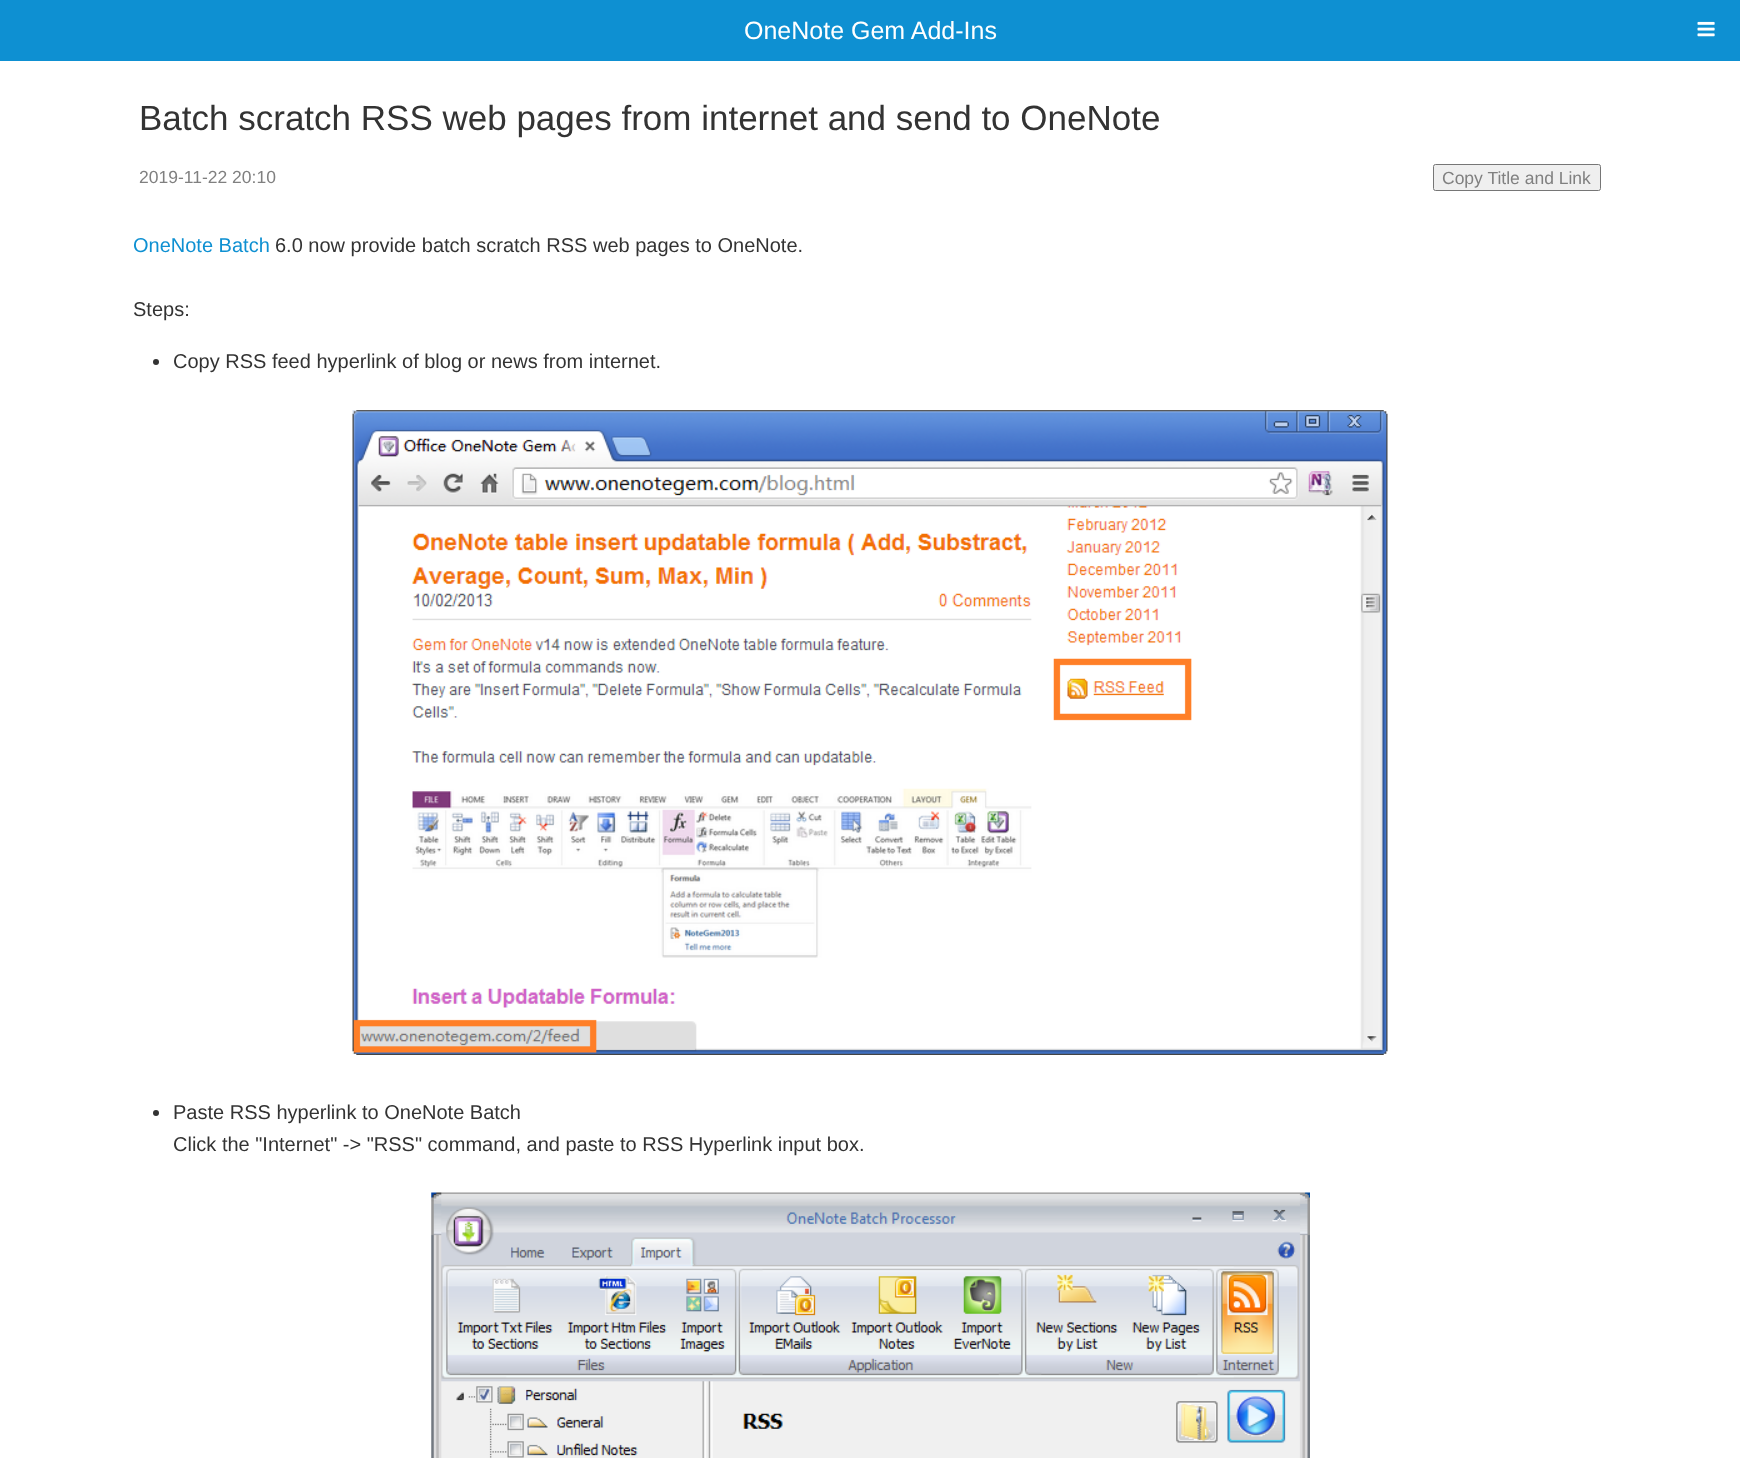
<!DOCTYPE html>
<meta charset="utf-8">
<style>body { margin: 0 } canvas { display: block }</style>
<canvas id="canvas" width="1740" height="1458"></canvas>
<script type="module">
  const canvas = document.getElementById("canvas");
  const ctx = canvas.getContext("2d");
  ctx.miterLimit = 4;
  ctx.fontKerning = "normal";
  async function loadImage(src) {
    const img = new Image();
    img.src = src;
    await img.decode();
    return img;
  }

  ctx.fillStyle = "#ffffff";
  ctx.fillRect(0, 0, 1740, 1458);
  ctx.fillStyle = "#0e90d2";
  ctx.fillRect(0, 0, 1740, 61);
  ctx.font = "25px Liberation Sans";
  ctx.fillStyle = "#ffffff";
  ctx.fillText("OneNote Gem Add-Ins", 744, 39);
  ctx.drawImage(await loadImage("img1.png"), 1697, 21, 18, 16);
  ctx.font = "35px Liberation Sans";
  ctx.fillStyle = "#333333";
  ctx.fillText("Batch scratch RSS web pages from internet and send to OneNote", 139, 130);
  ctx.font = "17.5px Liberation Sans";
  ctx.fillStyle = "#808080";
  ctx.fillText("2019-11-22 20:10", 139, 183);
  ctx.fillStyle = "#efefef";
  ctx.beginPath();
  ctx.roundRect(1433.5, 164.5, 167, 26, 2);
  ctx.fill();
  ctx.strokeStyle = "#767676";
  ctx.stroke();
  ctx.fillStyle = "#808080";
  ctx.fillText("Copy Title and Link", 1442, 184);
  ctx.font = "20px Liberation Sans";
  ctx.fillStyle = "#0e90d2";
  ctx.fillText("OneNote Batch", 133, 252);
  ctx.fillStyle = "#333333";
  ctx.fillText("6.0 now provide batch scratch RSS web pages to OneNote.", 275, 252);
  ctx.fillText("Steps:", 133, 316);
  ctx.beginPath();
  ctx.arc(156, 362, 3, 0, Math.PI * 2);
  ctx.fill();
  ctx.fillText("Copy RSS feed hyperlink of blog or news from internet.", 173, 368);
  ctx.drawImage(await loadImage("img2.png"), 352, 410, 1036, 645);
  ctx.beginPath();
  ctx.arc(156, 1113, 3, 0, Math.PI * 2);
  ctx.fill();
  ctx.fillText("Paste RSS hyperlink to OneNote Batch", 173, 1119);
  ctx.fillText("Click the \"Internet\" -> \"RSS\" command, and paste to RSS Hyperlink input box.", 173, 1151);
  ctx.drawImage(await loadImage("img3.png"), 431, 1192, 879, 266);
</script>
